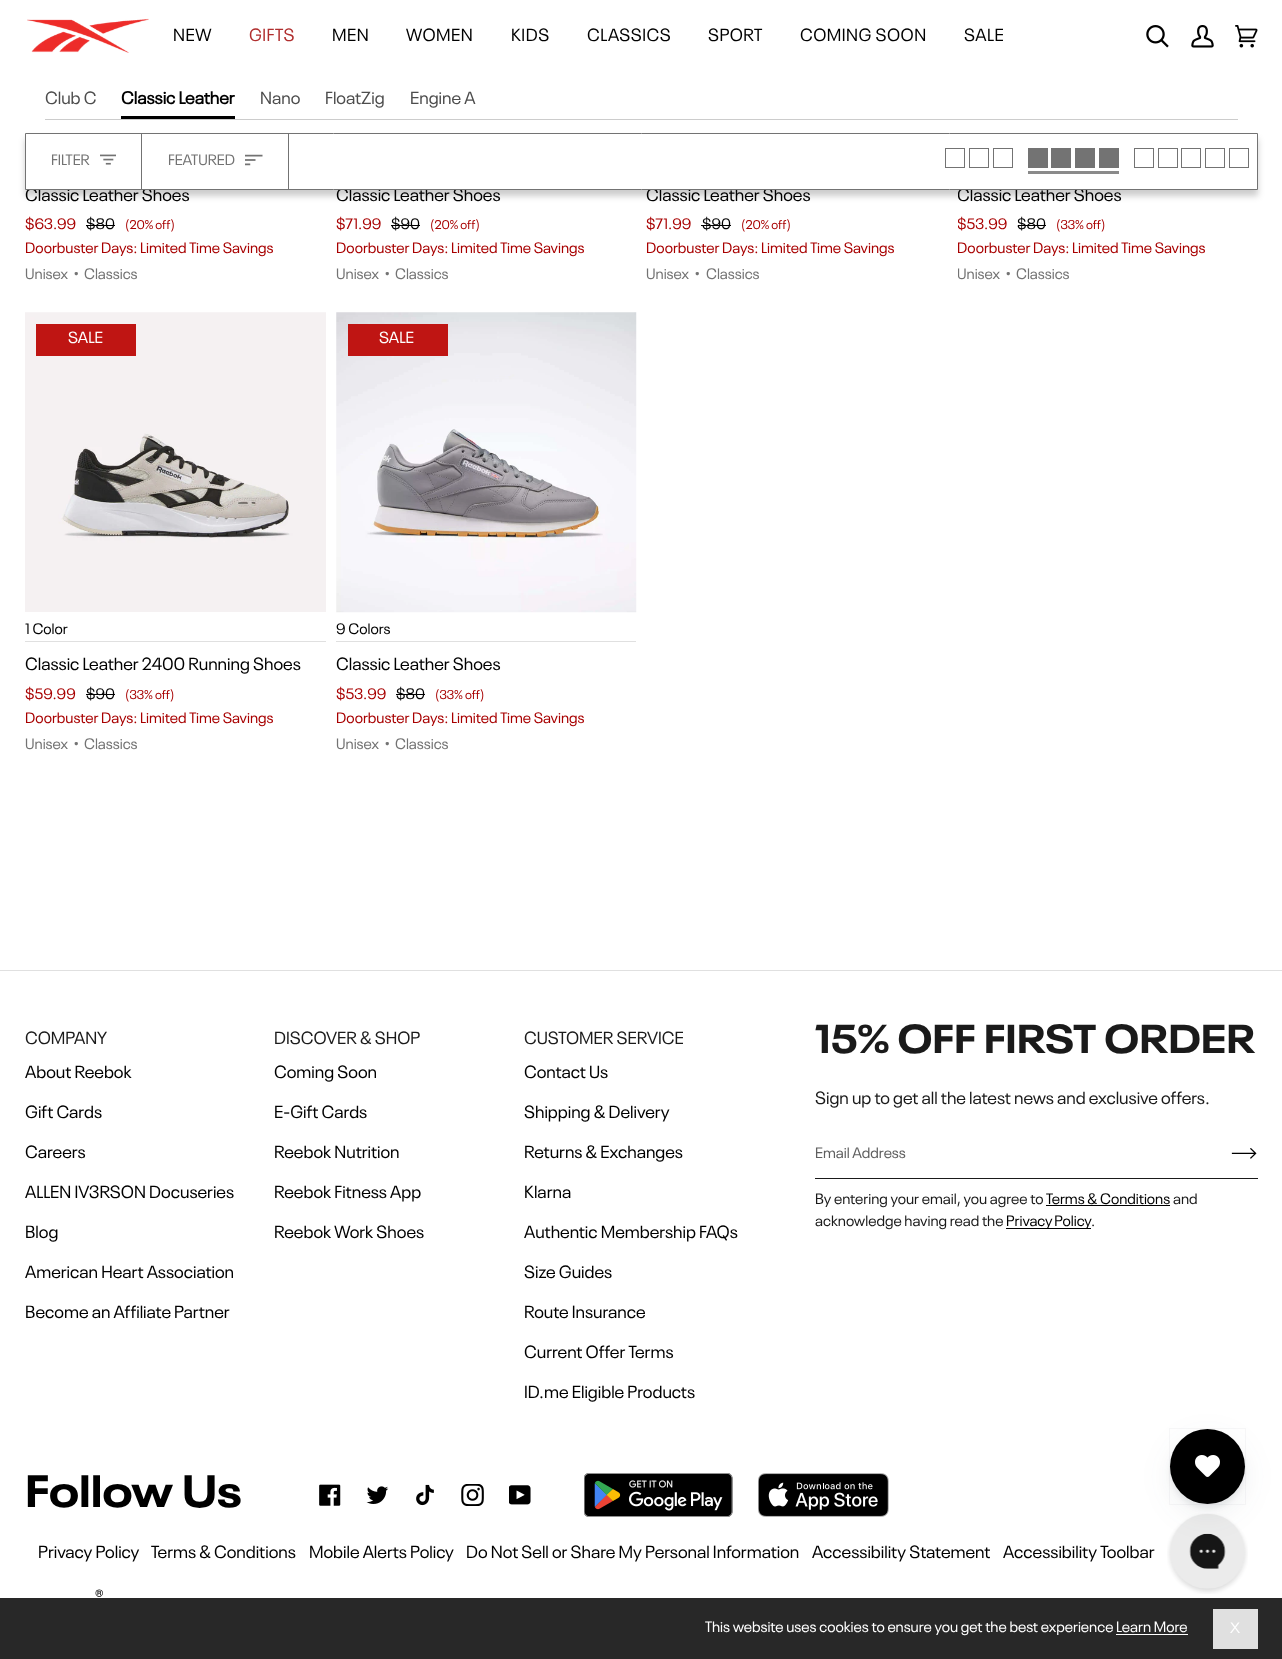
<!DOCTYPE html>
<meta charset="utf-8">
<style>body { margin: 0 } canvas { display: block }</style>
<canvas id="canvas" width="1282" height="1659"></canvas>
<script type="module">
  const canvas = document.getElementById("canvas");
  const ctx = canvas.getContext("2d");
  ctx.miterLimit = 4;
  ctx.fontKerning = "normal";
  async function loadImage(src) {
    const img = new Image();
    img.src = src;
    await img.decode();
    return img;
  }

  ctx.fillStyle = "#ffffff";
  ctx.fillRect(0, 0, 1282, 1659);
  ctx.drawImage(await loadImage("img1.png"), 27, 18, 122, 35);
  ctx.letterSpacing = "0.5px";
  ctx.font = "17.5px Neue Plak";
  ctx.fillStyle = "#000000";
  ctx.fillText("NEW", 173, 41);
  ctx.fillStyle = "#b02e2e";
  ctx.fillText("GIFTS", 249, 41);
  ctx.fillStyle = "#000000";
  ctx.fillText("MEN", 332, 41);
  ctx.fillText("WOMEN", 406, 41);
  ctx.fillText("KIDS", 511, 41);
  ctx.fillText("CLASSICS", 587, 41);
  ctx.fillText("SPORT", 708, 41);
  ctx.fillText("COMING SOON", 800, 41);
  ctx.fillText("SALE", 964, 41);
  ctx.drawImage(await loadImage("img2.png"), 1146, 25, 23, 23);
  ctx.drawImage(await loadImage("img3.png"), 1191, 25, 23, 23);
  ctx.drawImage(await loadImage("img4.png"), 1235, 25, 23, 23);
  ctx.fillStyle = "#cccccc";
  ctx.fillRect(45, 119, 1193, 1);
  ctx.letterSpacing = "0px";
  ctx.fillStyle = "#4d4d4d";
  ctx.fillText("Club C", 45, 104);
  ctx.fillStyle = "#000000";
  ctx.fillRect(121, 116, 114, 3);
  ctx.font = "bold 17.5px 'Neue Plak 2'";
  ctx.fillText("Classic Leather", 121, 104);
  ctx.font = "17.5px Neue Plak";
  ctx.fillStyle = "#4d4d4d";
  ctx.fillText("Nano", 260, 104);
  ctx.fillText("FloatZig", 325, 104);
  ctx.fillText("Engine A", 410, 104);
  ctx.fillStyle = "rgba(0, 0, 0, 0.2)";
  ctx.filter = "blur(3px)";
  ctx.beginPath();
  ctx.rect(25, 139, 1233, 57);
  ctx.fill();
  ctx.filter = "none";
  ctx.fillStyle = "#000000";
  ctx.fillText("Classic Leather Shoes", 25, 201);
  ctx.fillText("Classic Leather Shoes", 336, 201);
  ctx.fillText("Classic Leather Shoes", 646, 201);
  ctx.save();
  ctx.beginPath();
  ctx.rect(958, 0, 300, 288);
  ctx.clip();
  ctx.fillText("Classic Leather Shoes", 957, 201);
  ctx.restore();
  ctx.fillStyle = "#ffffff";
  ctx.beginPath();
  ctx.rect(25.5, 133.5, 1232, 56);
  ctx.fill();
  ctx.strokeStyle = "#737373";
  ctx.stroke();
  ctx.fillStyle = "#737373";
  ctx.fillRect(141, 134, 1, 55);
  ctx.font = "15px Neue Plak";
  ctx.fillText("FILTER", 51, 165);
  ctx.drawImage(await loadImage("img5.png"), 100, 154, 16, 11);
  ctx.fillRect(288, 134, 1, 55);
  ctx.fillText("FEATURED", 168, 165);
  ctx.drawImage(await loadImage("img6.png"), 245, 154, 18, 12);
  ctx.strokeRect(945.5, 148.5, 19, 19);
  ctx.strokeRect(969.5, 148.5, 19, 19);
  ctx.strokeRect(993.5, 148.5, 19, 19);
  ctx.fillRect(1028, 148, 20, 20);
  ctx.fillRect(1051, 148, 20, 20);
  ctx.fillRect(1075, 148, 20, 20);
  ctx.fillRect(1099, 148, 20, 20);
  ctx.fillStyle = "#8a8a8a";
  ctx.fillRect(1028, 171, 91, 3);
  ctx.strokeRect(1134.5, 148.5, 19, 19);
  ctx.strokeRect(1158.5, 148.5, 19, 19);
  ctx.strokeRect(1181.5, 148.5, 19, 19);
  ctx.strokeRect(1205.5, 148.5, 19, 19);
  ctx.strokeRect(1229.5, 148.5, 19, 19);
  ctx.fillStyle = "#a80000";
  ctx.fillText("$63.99", 25, 229);
  ctx.fillStyle = "#000000";
  ctx.fillText("$80", 86, 229);
  ctx.fillRect(86, 225, 29, 1);
  ctx.font = "12.5px Neue Plak";
  ctx.fillStyle = "#a80000";
  ctx.fillText("(20% off)", 125, 229);
  ctx.font = "15px Neue Plak";
  ctx.fillText("Doorbuster Days: Limited Time Savings", 25, 253);
  ctx.fillStyle = "#737373";
  ctx.fillText("Unisex", 25, 279);
  ctx.fillText("•", 73, 279);
  ctx.fillText("Classics", 84, 279);
  ctx.fillStyle = "#a80000";
  ctx.fillText("$71.99", 336, 229);
  ctx.fillStyle = "#000000";
  ctx.fillText("$90", 391, 229);
  ctx.fillRect(391, 225, 29, 1);
  ctx.font = "12.5px Neue Plak";
  ctx.fillStyle = "#a80000";
  ctx.fillText("(20% off)", 430, 229);
  ctx.font = "15px Neue Plak";
  ctx.fillText("Doorbuster Days: Limited Time Savings", 336, 253);
  ctx.fillStyle = "#737373";
  ctx.fillText("Unisex", 336, 279);
  ctx.fillText("•", 384, 279);
  ctx.fillText("Classics", 395, 279);
  ctx.fillStyle = "#a80000";
  ctx.fillText("$71.99", 646, 229);
  ctx.fillStyle = "#000000";
  ctx.fillText("$90", 702, 229);
  ctx.fillRect(701, 225, 30, 1);
  ctx.font = "12.5px Neue Plak";
  ctx.fillStyle = "#a80000";
  ctx.fillText("(20% off)", 741, 229);
  ctx.font = "15px Neue Plak";
  ctx.fillText("Doorbuster Days: Limited Time Savings", 646, 253);
  ctx.fillStyle = "#737373";
  ctx.fillText("Unisex", 646, 279);
  ctx.fillText("•", 694, 279);
  ctx.fillText("Classics", 706, 279);
  ctx.save();
  ctx.beginPath();
  ctx.rect(958, 213, 300, 26);
  ctx.clip();
  ctx.fillStyle = "#a80000";
  ctx.fillText("$53.99", 957, 229);
  ctx.restore();
  ctx.fillStyle = "#000000";
  ctx.fillText("$80", 1017, 229);
  ctx.fillRect(1018, 225, 28, 1);
  ctx.font = "12.5px Neue Plak";
  ctx.fillStyle = "#a80000";
  ctx.fillText("(33% off)", 1056, 229);
  ctx.save();
  ctx.beginPath();
  ctx.rect(958, 0, 300, 288);
  ctx.clip();
  ctx.font = "15px Neue Plak";
  ctx.fillText("Doorbuster Days: Limited Time Savings", 957, 253);
  ctx.fillStyle = "#737373";
  ctx.fillText("Unisex", 957, 279);
  ctx.restore();
  ctx.font = "15px Neue Plak";
  ctx.fillStyle = "#737373";
  ctx.fillText("•", 1005, 279);
  ctx.fillText("Classics", 1016, 279);
  ctx.drawImage(await loadImage("img7.png"), 25, 312, 301, 300);
  ctx.fillStyle = "#bf1513";
  ctx.fillRect(36, 324, 100, 32);
  ctx.font = "16px Neue Plak";
  ctx.fillStyle = "#ffffff";
  ctx.fillText("SALE", 68, 343);
  ctx.font = "15px Neue Plak";
  ctx.fillStyle = "#000000";
  ctx.fillText("1 Color", 25, 634);
  ctx.fillStyle = "#e0e0e0";
  ctx.fillRect(25, 641, 301, 1);
  ctx.font = "17.5px Neue Plak";
  ctx.fillStyle = "#000000";
  ctx.fillText("Classic Leather 2400 Running Shoes", 25, 670);
  ctx.font = "15px Neue Plak";
  ctx.fillStyle = "#a80000";
  ctx.fillText("$59.99", 25, 699);
  ctx.fillStyle = "#000000";
  ctx.fillText("$90", 86, 699);
  ctx.fillRect(86, 694, 29, 1);
  ctx.font = "12.5px Neue Plak";
  ctx.fillStyle = "#a80000";
  ctx.fillText("(33% off)", 125, 699);
  ctx.font = "15px Neue Plak";
  ctx.fillText("Doorbuster Days: Limited Time Savings", 25, 723);
  ctx.fillStyle = "#737373";
  ctx.fillText("Unisex", 25, 749);
  ctx.fillText("•", 73, 749);
  ctx.fillText("Classics", 84, 749);
  ctx.drawImage(await loadImage("img8.png"), 336, 312, 301, 301);
  ctx.fillStyle = "#bf1513";
  ctx.fillRect(348, 324, 100, 32);
  ctx.font = "16px Neue Plak";
  ctx.fillStyle = "#ffffff";
  ctx.fillText("SALE", 379, 343);
  ctx.font = "15px Neue Plak";
  ctx.fillStyle = "#000000";
  ctx.fillText("9 Colors", 336, 634);
  ctx.fillStyle = "#e0e0e0";
  ctx.fillRect(336, 641, 300, 1);
  ctx.font = "17.5px Neue Plak";
  ctx.fillStyle = "#000000";
  ctx.fillText("Classic Leather Shoes", 336, 670);
  ctx.font = "15px Neue Plak";
  ctx.fillStyle = "#a80000";
  ctx.fillText("$53.99", 336, 699);
  ctx.fillStyle = "#000000";
  ctx.fillText("$80", 396, 699);
  ctx.fillRect(396, 694, 29, 1);
  ctx.font = "12.5px Neue Plak";
  ctx.fillStyle = "#a80000";
  ctx.fillText("(33% off)", 435, 699);
  ctx.font = "15px Neue Plak";
  ctx.fillText("Doorbuster Days: Limited Time Savings", 336, 723);
  ctx.fillStyle = "#737373";
  ctx.fillText("Unisex", 336, 749);
  ctx.fillText("•", 384, 749);
  ctx.fillText("Classics", 395, 749);
  ctx.fillStyle = "#e0e0e0";
  ctx.fillRect(0, 970, 1282, 1);
  ctx.font = "17.5px Neue Plak";
  ctx.fillStyle = "#1a1a1a";
  ctx.fillText("COMPANY", 25, 1044);
  ctx.fillStyle = "#000000";
  ctx.fillText("About Reebok", 25, 1078);
  ctx.fillText("Gift Cards", 25, 1118);
  ctx.fillText("Careers", 25, 1158);
  ctx.fillText("ALLEN IV3RSON Docuseries", 25, 1198);
  ctx.fillText("Blog", 25, 1238);
  ctx.fillText("American Heart Association", 25, 1278);
  ctx.fillText("Become an Affiliate Partner", 25, 1318);
  ctx.fillStyle = "#1a1a1a";
  ctx.fillText("DISCOVER & SHOP", 274, 1044);
  ctx.fillStyle = "#000000";
  ctx.fillText("Coming Soon", 274, 1078);
  ctx.fillText("E-Gift Cards", 274, 1118);
  ctx.fillText("Reebok Nutrition", 274, 1158);
  ctx.fillText("Reebok Fitness App", 274, 1198);
  ctx.fillText("Reebok Work Shoes", 274, 1238);
  ctx.fillStyle = "#1a1a1a";
  ctx.fillText("CUSTOMER SERVICE", 524, 1044);
  ctx.fillStyle = "#000000";
  ctx.fillText("Contact Us", 524, 1078);
  ctx.fillText("Shipping & Delivery", 524, 1118);
  ctx.fillText("Returns & Exchanges", 524, 1158);
  ctx.fillText("Klarna", 524, 1198);
  ctx.fillText("Authentic Membership FAQs", 524, 1238);
  ctx.fillText("Size Guides", 524, 1278);
  ctx.fillText("Route Insurance", 524, 1318);
  ctx.fillText("Current Offer Terms", 524, 1358);
  ctx.fillText("ID.me Eligible Products", 524, 1398);
  ctx.font = "bold 40px Neue Plak";
  ctx.fillStyle = "#1a1a1a";
  ctx.fillText("15% OFF FIRST ORDER", 815, 1053);
  ctx.font = "17.5px Neue Plak";
  ctx.fillText("Sign up to get all the latest news and exclusive offers.", 815, 1104);
  ctx.fillRect(815, 1178, 443, 1);
  ctx.font = "15px Neue Plak";
  ctx.fillStyle = "#5f5f5f";
  ctx.fillText("Email Address", 815, 1158);
  ctx.drawImage(await loadImage("img9.png"), 1231, 1148, 26, 11);
  ctx.fillStyle = "#1a1a1a";
  ctx.fillText("By entering your email, you agree to", 815, 1204);
  ctx.fillStyle = "#000000";
  ctx.fillText("Terms & Conditions", 1046, 1204);
  ctx.fillRect(1046, 1205, 124, 1);
  ctx.fillStyle = "#1a1a1a";
  ctx.fillText("and", 1173, 1204);
  ctx.fillText("acknowledge having read the", 815, 1226);
  ctx.fillStyle = "#000000";
  ctx.fillRect(1006, 1228, 85, 1);
  ctx.wordSpacing = "-1px";
  ctx.fillText("Privacy Policy", 1006, 1226);
  ctx.wordSpacing = "0px";
  ctx.fillStyle = "#1a1a1a";
  ctx.fillText(".", 1091, 1226);
  ctx.font = "bold 45px Neue Plak";
  ctx.fillStyle = "#000000";
  ctx.fillText("Follow Us", 25, 1507);
  ctx.drawImage(await loadImage("img10.png"), 319, 1484, 22, 22);
  ctx.drawImage(await loadImage("img11.png"), 366, 1486, 23, 18);
  ctx.drawImage(await loadImage("img12.png"), 416, 1484, 18, 22);
  ctx.drawImage(await loadImage("img13.png"), 461, 1484, 23, 22);
  ctx.drawImage(await loadImage("img14.png"), 509, 1485, 22, 20);
  ctx.drawImage(await loadImage("img15.png"), 584, 1473, 149, 44);
  ctx.drawImage(await loadImage("img16.png"), 758, 1473, 131, 44);
  ctx.font = "17.5px Neue Plak";
  ctx.fillText("Privacy Policy", 38, 1558);
  ctx.fillText("Terms & Conditions", 151, 1558);
  ctx.fillText("Mobile Alerts Policy", 309, 1558);
  ctx.fillText("Do Not Sell or Share My Personal Information", 466, 1558);
  ctx.fillText("Accessibility Statement", 812, 1558);
  ctx.fillText("Accessibility Toolbar", 1003, 1558);
  ctx.fillText("®", 95, 1602);
  ctx.drawImage(await loadImage("img18.png"), 1167, 1513, 81, 81);
  ctx.fillStyle = "rgba(55, 63, 71, 0.08)";
  ctx.filter = "blur(15px)";
  ctx.beginPath();
  ctx.roundRect(1170, 1439, 75, 75, 37.5);
  ctx.fill();
  ctx.filter = "none";
  ctx.filter = "blur(2.5px)";
  ctx.beginPath();
  ctx.roundRect(1170, 1434, 75, 75, 37.5);
  ctx.fill();
  ctx.filter = "none";
  ctx.strokeStyle = "rgba(55, 63, 71, 0.04)";
  ctx.strokeRect(1169.5, 1428.5, 76, 76);
  ctx.fillStyle = "#000000";
  ctx.beginPath();
  ctx.arc(1207.5, 1466.5, 37.5, 0, Math.PI * 2);
  ctx.fill();
  ctx.drawImage(await loadImage("img17.png"), 1195, 1455, 25, 22);
  ctx.fillStyle = "#282828";
  ctx.fillRect(0, 1598, 1282, 61);
  ctx.font = "15px Neue Plak";
  ctx.fillStyle = "#ffffff";
  ctx.fillText("This website uses cookies to ensure you get the best experience Learn More", 705, 1632);
  ctx.fillRect(1116, 1634, 72, 1);
  ctx.fillStyle = "#e0e0e0";
  ctx.fillRect(1213, 1609, 45, 40);
  ctx.fillStyle = "#ffffff";
  ctx.fillText("X", 1230, 1633);
</script>
